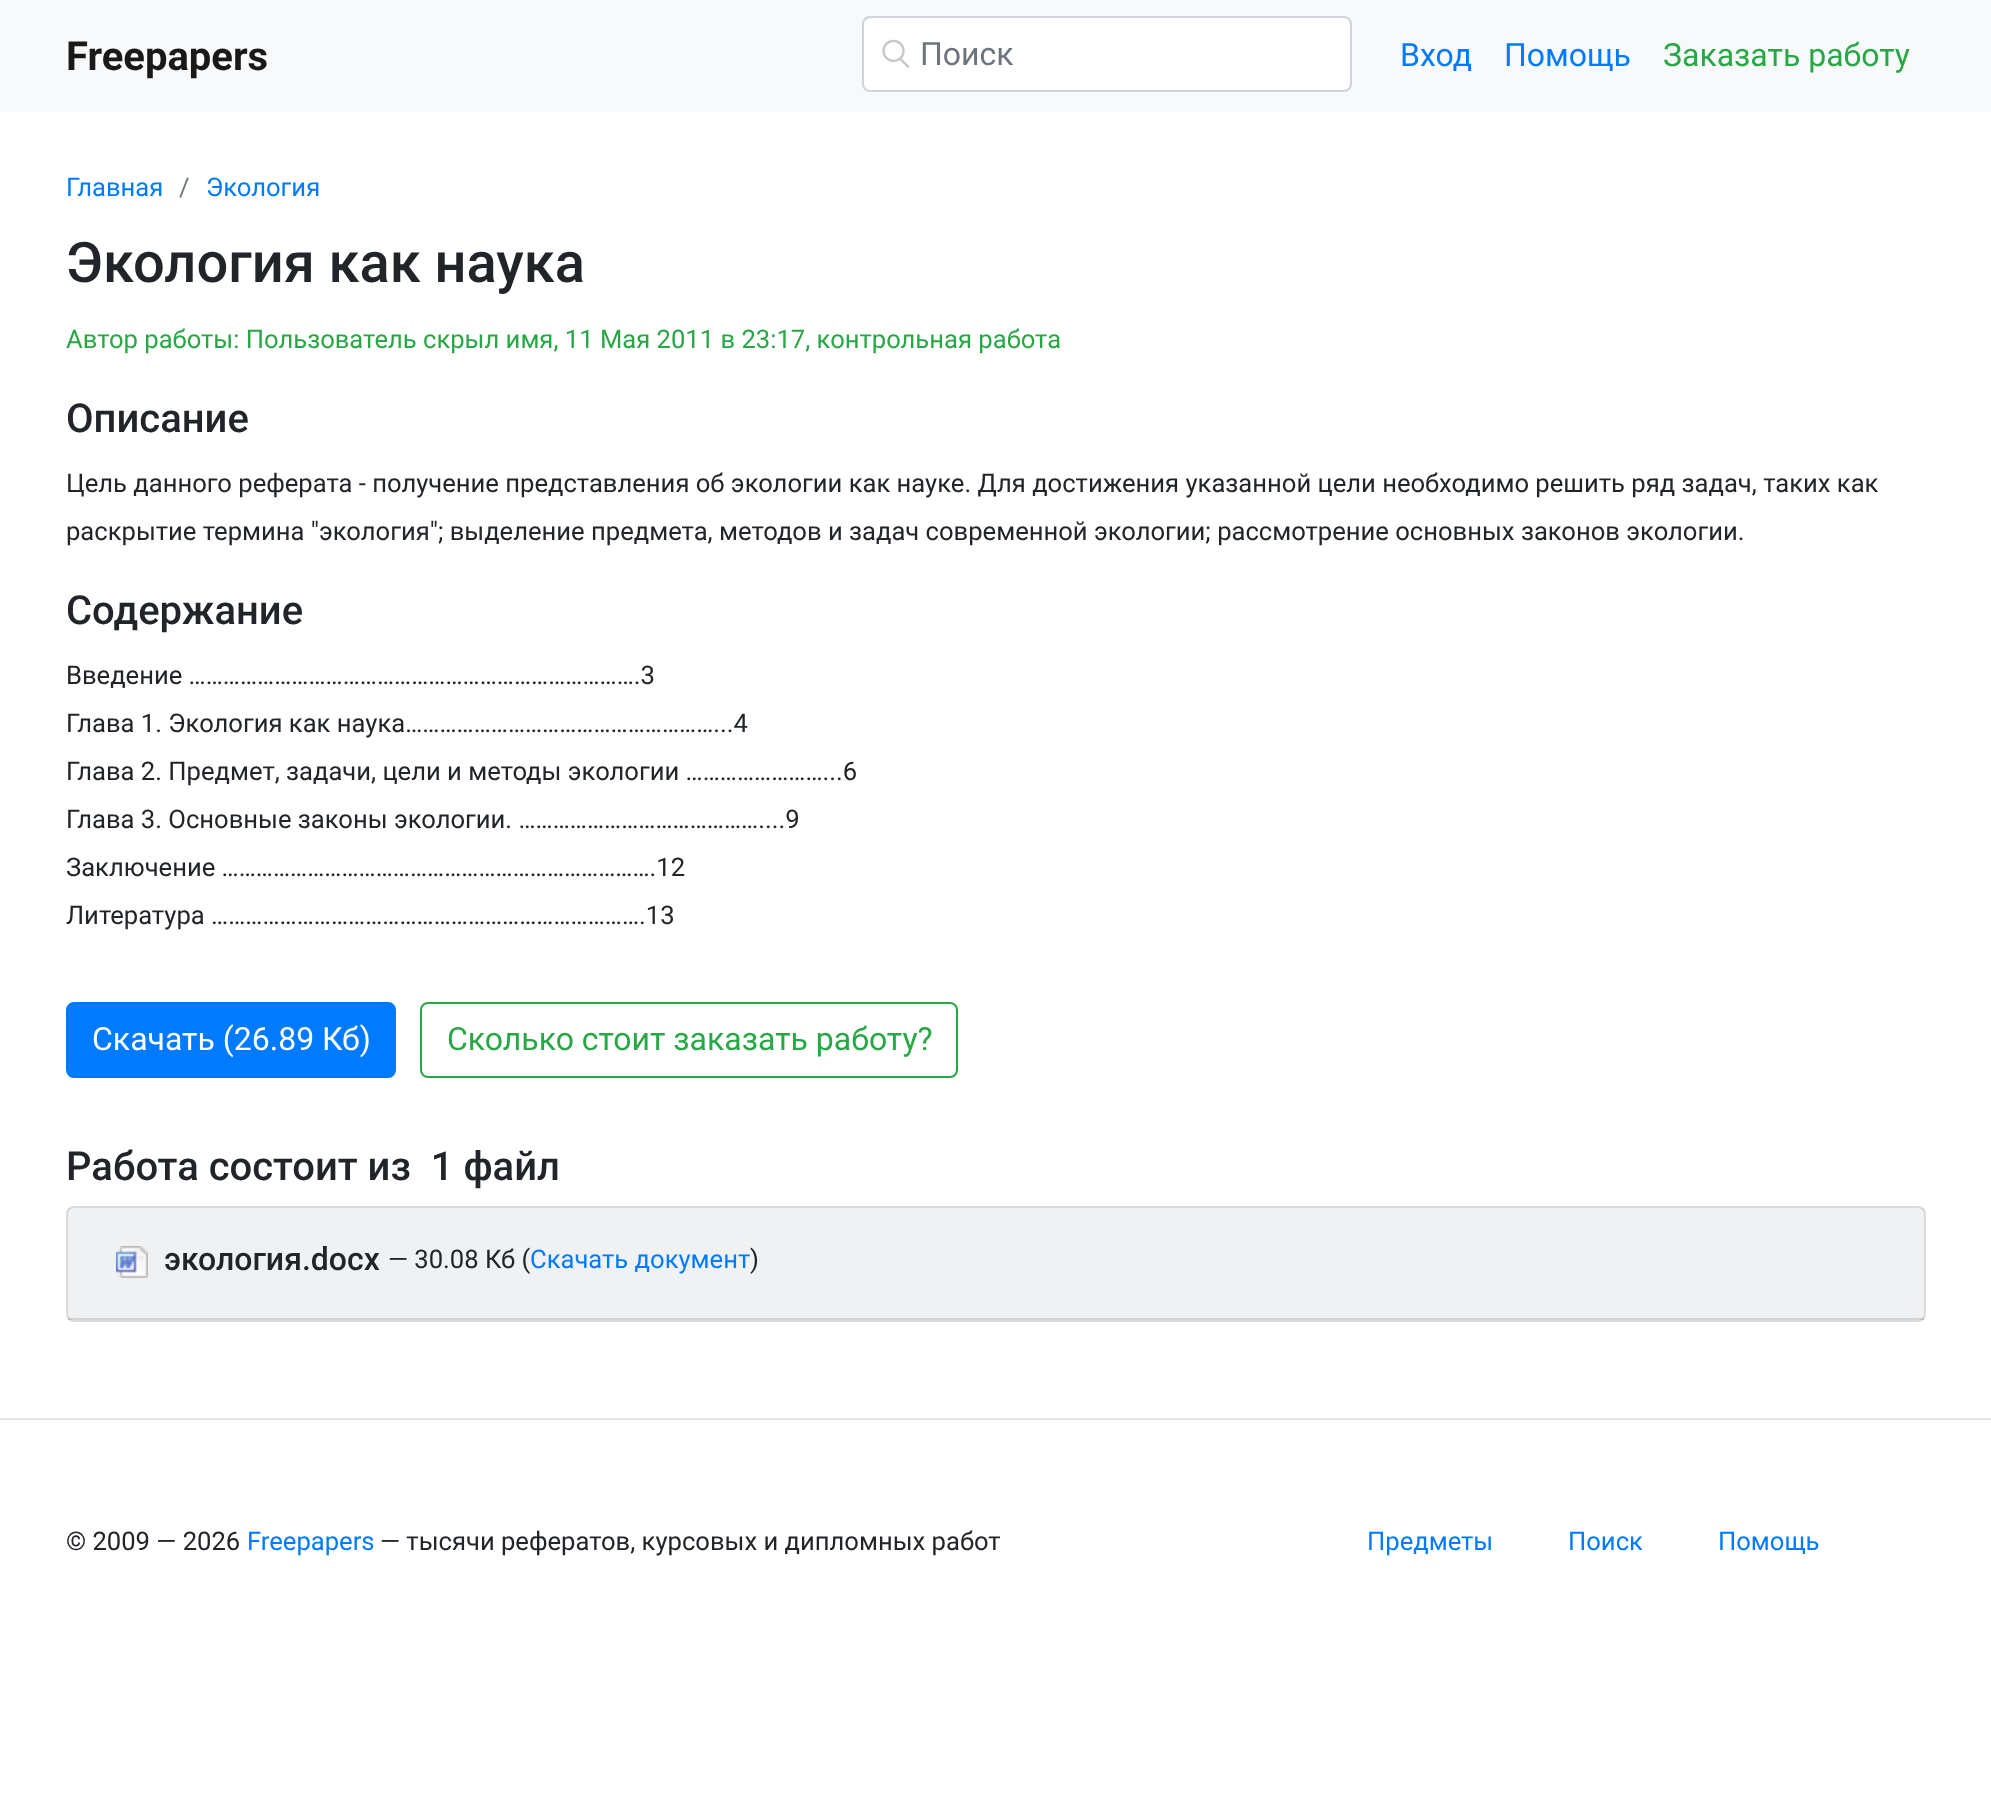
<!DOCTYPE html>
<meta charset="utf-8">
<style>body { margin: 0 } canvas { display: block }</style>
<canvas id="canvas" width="1991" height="1819"></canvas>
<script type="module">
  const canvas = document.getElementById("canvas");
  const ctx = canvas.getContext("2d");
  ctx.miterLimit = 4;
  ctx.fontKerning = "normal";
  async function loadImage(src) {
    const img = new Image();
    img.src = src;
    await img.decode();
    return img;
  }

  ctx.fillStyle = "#ffffff";
  ctx.fillRect(0, 0, 1991, 1819);
  ctx.fillStyle = "#f8f9fa";
  ctx.fillRect(0, 0, 1991, 112);
  ctx.font = "bold 40px Roboto";
  ctx.fillStyle = "#191919";
  ctx.fillText("Freepapers", 66, 70);
  ctx.fillStyle = "#ffffff";
  ctx.beginPath();
  ctx.roundRect(864, 18, 486, 72, 6);
  ctx.fill();
  ctx.drawImage(await loadImage("img1.png"), 882, 39, 28, 29);
  ctx.beginPath();
  ctx.roundRect(863, 17, 488, 74, 7);
  ctx.strokeStyle = "#ced4da";
  ctx.lineWidth = 2;
  ctx.stroke();
  ctx.font = "32px Roboto";
  ctx.fillStyle = "#6c757d";
  ctx.fillText("Поиск", 920, 65);
  ctx.fillStyle = "#007bff";
  ctx.fillText("Вход", 1400, 66);
  ctx.fillText("Помощь", 1504, 66);
  ctx.fillStyle = "#28a745";
  ctx.fillText("Заказать работу", 1663, 66);
  ctx.font = "25.6px Roboto";
  ctx.fillStyle = "#007bff";
  ctx.fillText("Главная", 66, 196);
  ctx.fillStyle = "#6c757d";
  ctx.fillText("/", 179, 196);
  ctx.fillStyle = "#007bff";
  ctx.fillText("Экология", 206, 196);
  ctx.font = "500 56px Roboto";
  ctx.fillStyle = "#212529";
  ctx.fillText("Экология как наука", 66, 282);
  ctx.font = "25.6px Roboto";
  ctx.fillStyle = "#28a745";
  ctx.fillText("Автор работы: Пользователь скрыл имя, 11 Мая 2011 в 23:17, контрольная работа", 66, 348);
  ctx.font = "500 40px Roboto";
  ctx.fillStyle = "#212529";
  ctx.fillText("Описание", 66, 432);
  ctx.font = "25.6px Roboto";
  ctx.fillText("Цель данного реферата - получение представления об экологии как науке. Для достижения указанной цели необходимо решить ряд задач, таких как", 66, 492);
  ctx.fillText("раскрытие термина \"экология\"; выделение предмета, методов и задач современной экологии; рассмотрение основных законов экологии.", 66, 540);
  ctx.font = "500 40px Roboto";
  ctx.fillText("Содержание", 66, 624);
  ctx.font = "25.6px Roboto";
  ctx.fillText("Введение …………………………………………………………………….3", 66, 684);
  ctx.fillText("Глава 1. Экология как наука………………………………………………...4", 66, 732);
  ctx.fillText("Глава 2. Предмет, задачи, цели и методы экологии ……………………...6", 66, 780);
  ctx.fillText("Глава 3. Основные законы экологии. ……………………………………....9", 66, 828);
  ctx.fillText("Заключение ………………………………………………………………….12", 66, 876);
  ctx.fillText("Литература ………………………………………………………………….13", 66, 924);
  ctx.fillStyle = "#007bff";
  ctx.beginPath();
  ctx.roundRect(67, 1003, 328, 74, 7);
  ctx.fill();
  ctx.strokeStyle = "#007bff";
  ctx.stroke();
  ctx.font = "32px Roboto";
  ctx.fillStyle = "#ffffff";
  ctx.fillText("Скачать (26.89 Кб)", 92, 1050);
  ctx.beginPath();
  ctx.roundRect(421, 1003, 536, 74, 7);
  ctx.strokeStyle = "#28a745";
  ctx.stroke();
  ctx.fillStyle = "#28a745";
  ctx.fillText("Сколько стоит заказать работу?", 447, 1050);
  ctx.font = "500 40px Roboto";
  ctx.fillStyle = "#212529";
  ctx.fillText("Работа состоит из  1 файл", 66, 1180);
  ctx.fillStyle = "#f8f9fa";
  ctx.beginPath();
  ctx.roundRect(66, 1206, 1860, 116, 8);
  ctx.fill();
  ctx.beginPath();
  ctx.roundRect(67, 1207, 1858, 114, 7);
  ctx.strokeStyle = "rgba(0, 0, 0, 0.12)";
  ctx.stroke();
  ctx.fillStyle = "rgba(0, 0, 0, 0.03)";
  ctx.fillRect(68, 1208, 1856, 112);
  ctx.fillStyle = "rgba(0, 0, 0, 0.12)";
  ctx.fillRect(68, 1318, 1856, 2);
  ctx.drawImage(await loadImage("img2.png"), 116, 1246, 32, 32);
  ctx.font = "500 32px Roboto";
  ctx.fillStyle = "#212529";
  ctx.fillText("экология.docx", 164, 1270);
  ctx.font = "25.6px Roboto";
  ctx.fillText("— 30.08 Кб (", 388, 1268);
  ctx.fillStyle = "#007bff";
  ctx.fillText("Скачать документ", 530, 1268);
  ctx.fillStyle = "#212529";
  ctx.fillText(")", 750, 1268);
  ctx.fillStyle = "#e6e6e6";
  ctx.fillRect(0, 1418, 1991, 2);
  ctx.fillStyle = "#212529";
  ctx.fillText("© 2009 — 2026", 66, 1550);
  ctx.fillStyle = "#007bff";
  ctx.fillText("Freepapers", 247, 1550);
  ctx.fillStyle = "#212529";
  ctx.fillText("— тысячи рефератов, курсовых и дипломных работ", 380, 1550);
  ctx.fillStyle = "#007bff";
  ctx.fillText("Предметы", 1367, 1550);
  ctx.fillText("Поиск", 1568, 1550);
  ctx.fillText("Помощь", 1718, 1550);
</script>
